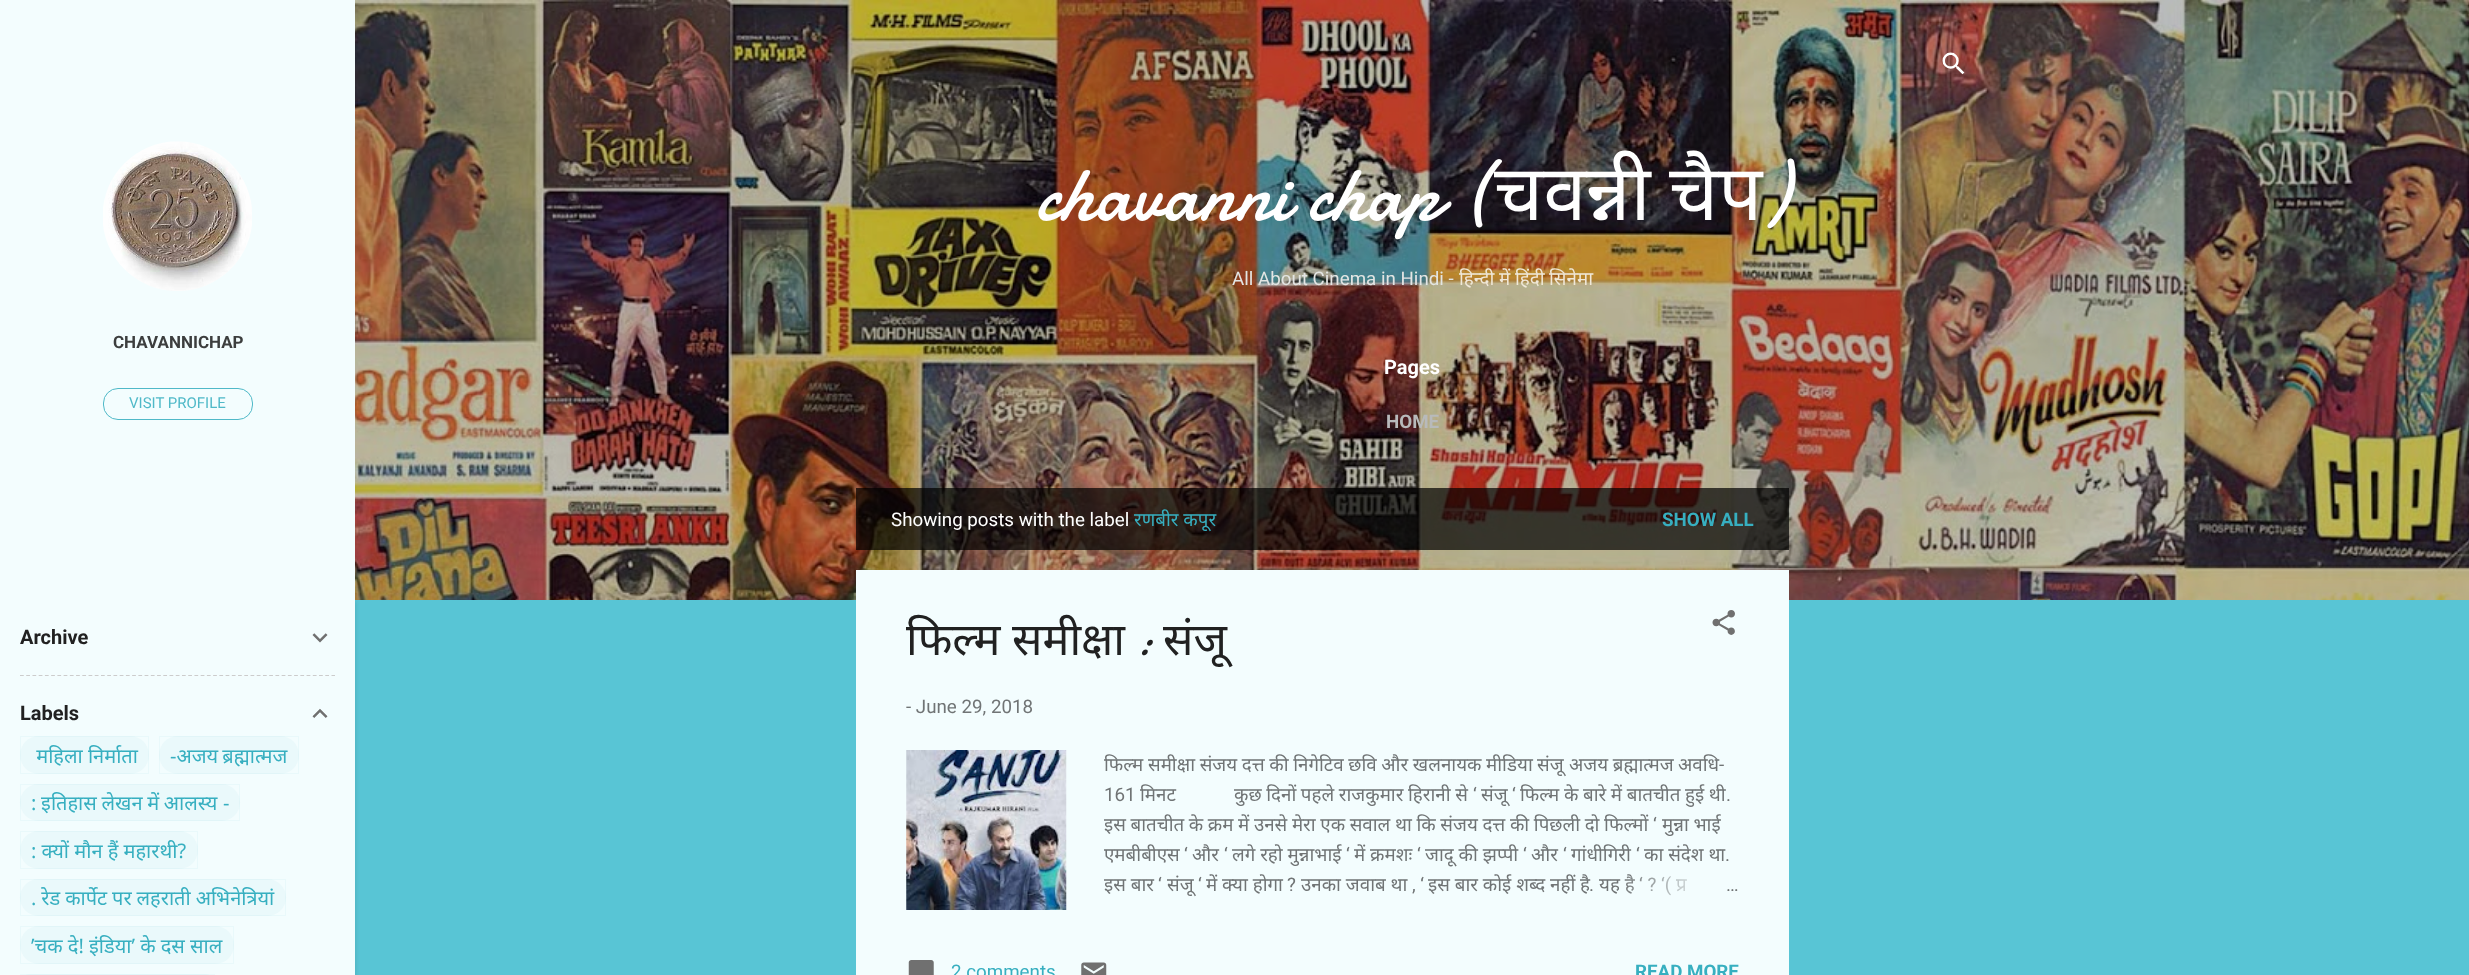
<!DOCTYPE html>
<meta charset="utf-8">
<style>body { margin: 0 } canvas { display: block }</style>
<canvas id="canvas" width="2469" height="975"></canvas>
<script type="module">
  const canvas = document.getElementById("canvas");
  const ctx = canvas.getContext("2d");
  ctx.miterLimit = 4;
  ctx.fontKerning = "normal";
  async function loadImage(src) {
    const img = new Image();
    img.src = src;
    await img.decode();
    return img;
  }
  let gradient;

  ctx.fillStyle = "#58c5d5";
  ctx.fillRect(0, 0, 2469, 975);
  ctx.drawImage(await loadImage("img4.png"), 355, 0, 2114, 600);
  ctx.fillStyle = "rgba(0, 0, 0, 0.1)";
  ctx.filter = "blur(2px)";
  ctx.beginPath();
  ctx.rect(1, 601, 355, 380);
  ctx.fill();
  ctx.filter = "none";
  ctx.fillStyle = "#f3fdfe";
  ctx.fillRect(0, 0, 355, 975);
  ctx.drawImage(await loadImage("img1.png"), 103, 141, 149, 150);
  ctx.font = "bold 17px Roboto";
  ctx.fillStyle = "#3c3e3e";
  ctx.fillText("CHAVANNICHAP", 113, 348);
  ctx.beginPath();
  ctx.roundRect(103.5, 388.5, 149, 31, 14.5);
  ctx.strokeStyle = "#4fb9c8";
  ctx.stroke();
  ctx.font = "15px Roboto";
  ctx.fillStyle = "#4fb9c8";
  ctx.fillText("VISIT PROFILE", 129, 408);
  ctx.font = "bold 20px Roboto";
  ctx.fillStyle = "#212121";
  ctx.fillText("Archive", 20, 644);
  ctx.drawImage(await loadImage("img2.png"), 312, 633, 16, 10);
  ctx.beginPath();
  ctx.moveTo(20, 675.5);
  ctx.lineTo(335, 675.5);
  ctx.strokeStyle = "#cccccc";
  ctx.lineWidth = 1.2;
  ctx.setLineDash([3.75, 2.48]);
  ctx.stroke();
  ctx.fillText("Labels", 20, 720);
  ctx.drawImage(await loadImage("img3.png"), 312, 708, 16, 10);
  ctx.fillStyle = "#eaf9fb";
  ctx.beginPath();
  ctx.roundRect(20, 736, 129, 38, 19);
  ctx.fill();
  ctx.strokeStyle = "rgba(55, 175, 192, 0.05)";
  ctx.lineWidth = 1;
  ctx.setLineDash([]);
  ctx.strokeRect(20.5, 736.5, 128, 37);
  ctx.font = "20px Noto Sans";
  ctx.fillStyle = "#37afc0";
  ctx.fillText("‍ महिला निर्माता", 31, 763);
  ctx.fillStyle = "#eaf9fb";
  ctx.beginPath();
  ctx.roundRect(159, 736, 140, 38, 19);
  ctx.fill();
  ctx.strokeRect(159.5, 736.5, 139, 37);
  ctx.wordSpacing = "-1px";
  ctx.fillStyle = "#37afc0";
  ctx.fillText("-अजय ब्रह्मात्मज", 170, 763);
  ctx.fillStyle = "#eaf9fb";
  ctx.beginPath();
  ctx.roundRect(20, 784, 220, 37, 18.5);
  ctx.fill();
  ctx.strokeRect(20.5, 784.5, 219, 36);
  ctx.wordSpacing = "-0.5px";
  ctx.fillStyle = "#37afc0";
  ctx.fillText(": इतिहास लेखन में आलस्य", 31, 810);
  ctx.wordSpacing = "0px";
  ctx.fillText("-", 223, 810);
  ctx.fillStyle = "#eaf9fb";
  ctx.beginPath();
  ctx.roundRect(20, 831, 178, 38, 19);
  ctx.fill();
  ctx.strokeRect(20.5, 831.5, 177, 37);
  ctx.fillStyle = "#37afc0";
  ctx.fillText(": क्यों मौन हैं महारथी?", 31, 858);
  ctx.fillStyle = "#eaf9fb";
  ctx.beginPath();
  ctx.roundRect(20, 879, 266, 37, 18.5);
  ctx.fill();
  ctx.strokeRect(20.5, 879.5, 265, 36);
  ctx.wordSpacing = "-0.25px";
  ctx.fillStyle = "#37afc0";
  ctx.fillText(". रेड कार्पेट पर ल‍हराती अभिनेत्रियां", 31, 905);
  ctx.fillStyle = "#eaf9fb";
  ctx.beginPath();
  ctx.roundRect(20, 926, 214, 38, 19);
  ctx.fill();
  ctx.strokeRect(20.5, 926.5, 213, 37);
  ctx.wordSpacing = "0px";
  ctx.fillStyle = "#37afc0";
  ctx.fillText("’चक दे! इंडिया’ के दस साल", 31, 953);
  ctx.fillStyle = "#eaf9fb";
  ctx.beginPath();
  ctx.roundRect(20, 974, 195, 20, 18.5);
  ctx.fill();
  ctx.strokeRect(20.5, 974.5, 194, 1);
  ctx.drawImage(await loadImage("img5.png"), 1942, 52, 23, 23);
  ctx.font = "77.5px Damion";
  ctx.fillStyle = "#ffffff";
  ctx.fillText("chavanni chap (", 1037, 220);
  ctx.font = "77.5px Noto Sans";
  ctx.fillText("चवन्नी", 1494, 220);
  ctx.fillText("चैप", 1669, 220);
  ctx.font = "77.5px Damion";
  ctx.fillText(")", 1762, 220);
  ctx.font = "18.75px Roboto";
  ctx.fillStyle = "#e3e5e3";
  ctx.fillText("All About Cinema in Hindi -", 1232, 285);
  ctx.font = "18.75px Noto Sans";
  ctx.fillStyle = "#f0e8d9";
  ctx.fillText("हिन्दी", 1459, 285);
  ctx.fillText("में", 1499, 285);
  ctx.fillText("हिंदी", 1515, 285);
  ctx.fillText("सिनेमा", 1549, 285);
  ctx.font = "bold 20px Roboto";
  ctx.fillStyle = "#ffffff";
  ctx.fillText("Pages", 1384, 374);
  ctx.font = "bold 18.75px Roboto";
  ctx.fillStyle = "#b8babb";
  ctx.fillText("HOME", 1386, 428);
  ctx.fillStyle = "rgba(0, 0, 0, 0.7)";
  ctx.fillRect(856, 488, 933, 62);
  ctx.font = "18.75px Roboto";
  ctx.fillStyle = "#ffffff";
  ctx.fillText("Showing posts with the label", 891, 526);
  ctx.font = "18.75px Noto Sans";
  ctx.fillStyle = "#37afc0";
  ctx.fillText("रणबीर कपूर", 1134, 526);
  ctx.font = "bold 18.75px Roboto";
  ctx.fillText("SHOW ALL", 1662, 526);
  ctx.fillStyle = "#f3fdfe";
  ctx.fillRect(856, 570, 933, 405);
  ctx.font = "45px Noto Sans";
  ctx.fillStyle = "#212121";
  ctx.fillText("फिल्म समीक्षा", 906, 655);
  ctx.font = "45px Damion";
  ctx.fillText(":", 1135, 655);
  ctx.font = "45px Noto Sans";
  ctx.fillText("संजू", 1163, 655);
  ctx.drawImage(await loadImage("img6.png"), 1712, 610, 23, 25);
  ctx.font = "18.75px Roboto";
  ctx.fillStyle = "#707475";
  ctx.fillText("- June 29, 2018", 906, 713);
  ctx.drawImage(await loadImage("img7.png"), 906, 750, 161, 160);
  ctx.wordSpacing = "-0.25px";
  ctx.font = "18.75px Noto Sans";
  ctx.fillText("फिल्म समीक्षा संजय दत्त की निगेटिव छवि और खलनायक मीडिया", 1104, 771);
  ctx.wordSpacing = "0px";
  ctx.fillText("संजू", 1537, 771);
  ctx.wordSpacing = "-0.25px";
  ctx.fillText("अजय ब्रह्मात्मज", 1569, 771);
  ctx.wordSpacing = "0px";
  ctx.fillText("अवधि", 1678, 771);
  ctx.font = "18.75px Roboto";
  ctx.fillText("-", 1719, 771);
  ctx.fillText("161", 1104, 801);
  ctx.font = "18.75px Noto Sans";
  ctx.fillText("मिनट", 1140, 801);
  ctx.wordSpacing = "-0.25px";
  ctx.fillText("कुछ दिनों पहले राजकुमार हिरानी से", 1234, 801);
  ctx.wordSpacing = "0px";
  ctx.font = "18.75px Roboto";
  ctx.fillText("‘", 1473, 801);
  ctx.font = "18.75px Noto Sans";
  ctx.fillText("संजू", 1481, 801);
  ctx.font = "18.75px Roboto";
  ctx.fillText("‘", 1512, 801);
  ctx.wordSpacing = "-0.25px";
  ctx.font = "18.75px Noto Sans";
  ctx.fillText("फिल्म के बारे में बातचीत हुई थी", 1520, 801);
  ctx.wordSpacing = "0px";
  ctx.font = "18.75px Roboto";
  ctx.fillText(".", 1726, 801);
  ctx.wordSpacing = "-0.25px";
  ctx.font = "18.75px Noto Sans";
  ctx.fillText("इस बातचीत के क्रम में उनसे मेरा एक सवाल था कि संजय दत्त की पिछली दो फिल्मों", 1104, 831);
  ctx.wordSpacing = "0px";
  ctx.font = "18.75px Roboto";
  ctx.fillText("‘", 1653, 831);
  ctx.wordSpacing = "-0.25px";
  ctx.font = "18.75px Noto Sans";
  ctx.fillText("मुन्ना भाई", 1662, 831);
  ctx.wordSpacing = "0px";
  ctx.fillText("एमबीबीएस", 1104, 861);
  ctx.font = "18.75px Roboto";
  ctx.fillText("‘", 1184, 861);
  ctx.font = "18.75px Noto Sans";
  ctx.fillText("और", 1192, 861);
  ctx.font = "18.75px Roboto";
  ctx.fillText("‘", 1224, 861);
  ctx.font = "18.75px Noto Sans";
  ctx.fillText("लगे रहो मुन्नाभाई", 1232, 861);
  ctx.font = "18.75px Roboto";
  ctx.fillText("‘", 1346, 861);
  ctx.font = "18.75px Noto Sans";
  ctx.fillText("में क्रमशः", 1354, 861);
  ctx.fillText("जादू की झप्पी", 1425, 861);
  ctx.fillText("और", 1531, 861);
  ctx.fillText("गांधीगिरी", 1571, 861);
  ctx.fillText("का संदेश था", 1644, 861);
  ctx.font = "18.75px Roboto";
  ctx.fillText("‘", 1417, 861);
  ctx.fillText("‘", 1523, 861);
  ctx.fillText("‘", 1563, 861);
  ctx.fillText("‘", 1636, 861);
  ctx.fillText(".", 1725, 861);
  ctx.fillText("‘", 1158, 891);
  ctx.font = "18.75px Noto Sans";
  ctx.fillText("संजू", 1167, 891);
  ctx.font = "18.75px Roboto";
  ctx.fillText("‘", 1198, 891);
  ctx.font = "18.75px Noto Sans";
  ctx.fillText("में क्या होगा", 1206, 891);
  ctx.fillText("इस बार कोई शब्द नहीं है", 1428, 891);
  ctx.fillText("यह है", 1599, 891);
  ctx.fillText("इस बार", 1104, 891);
  ctx.font = "18.75px Roboto";
  ctx.fillText("?", 1287, 891);
  ctx.font = "18.75px Noto Sans";
  ctx.fillText("उनका जवाब था", 1301, 891);
  ctx.font = "18.75px Roboto";
  ctx.fillText(", ‘", 1412, 891);
  ctx.fillText(".", 1589, 891);
  ctx.fillText("‘ ? ‘(", 1639, 891);
  ctx.font = "18.75px Noto Sans";
  ctx.fillText("प्र", 1676, 891);
  gradient = ctx.createLinearGradient(1739, 885, 1619, 885);
  gradient.addColorStop(0, "#f3fdfe");
  gradient.addColorStop(0.2, "#f3fdfe");
  gradient.addColorStop(1, "rgba(243, 253, 254, 0)");
  ctx.fillStyle = gradient;
  ctx.fillRect(1621, 876, 66, 20);
  ctx.font = "18.75px Roboto";
  ctx.fillStyle = "#707475";
  ctx.fillText("…", 1726, 891);
  ctx.drawImage(await loadImage("img8.png"), 908, 960, 26, 15);
  ctx.fillStyle = "#37afc0";
  ctx.fillText("2 comments", 951, 978);
  ctx.drawImage(await loadImage("img9.png"), 1081, 962, 26, 13);
  ctx.font = "bold 18.75px Roboto";
  ctx.fillText("READ MORE", 1635, 978);
</script>
